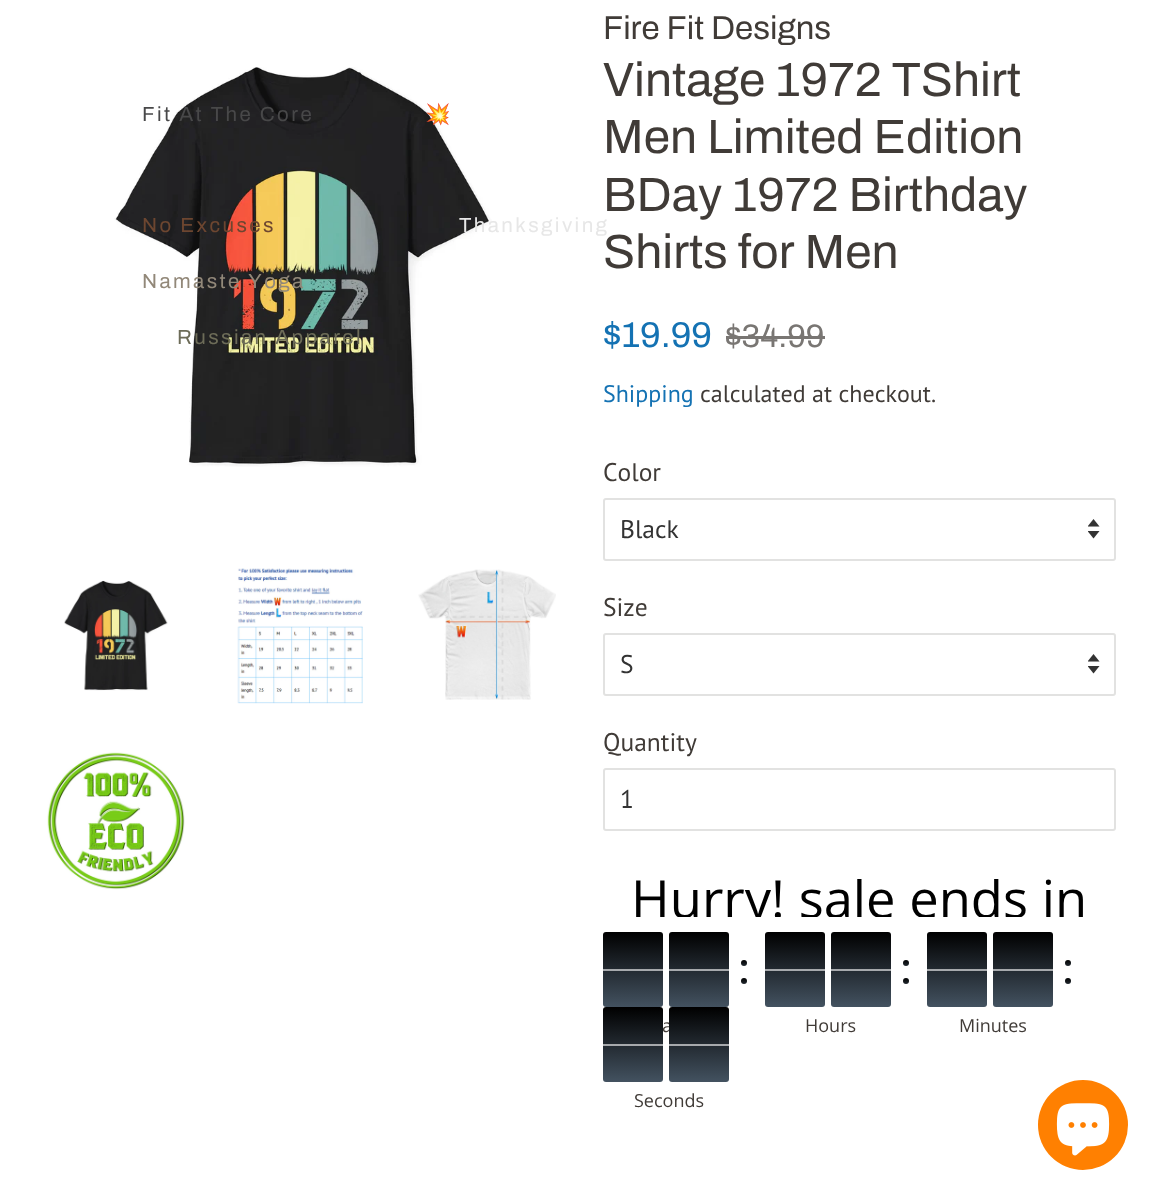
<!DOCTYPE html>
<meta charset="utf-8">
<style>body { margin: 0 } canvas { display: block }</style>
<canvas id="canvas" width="1160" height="1201"></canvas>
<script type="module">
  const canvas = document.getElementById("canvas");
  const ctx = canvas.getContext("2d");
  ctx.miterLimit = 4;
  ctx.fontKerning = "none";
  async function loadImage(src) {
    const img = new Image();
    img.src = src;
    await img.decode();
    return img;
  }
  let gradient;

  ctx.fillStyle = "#ffffff";
  ctx.fillRect(0, 0, 1160, 1201);
  ctx.drawImage(await loadImage("img1.png"), 114, 67, 378, 400);
  ctx.letterSpacing = "2.4px";
  ctx.font = "20.5px Archivo";
  ctx.fillStyle = "#484849";
  ctx.fillText("Fit At The Core", 142, 121);
  ctx.fillStyle = "#6d4630";
  ctx.fillText("No Excuses", 142, 232);
  ctx.fillStyle = "#928879";
  ctx.fillText("Namaste Yoga", 142, 288);
  ctx.fillStyle = "#6d6c58";
  ctx.fillText("Russian Apparel", 177, 344);
  ctx.font = "20.5px Noto Color Emoji";
  ctx.fillStyle = "#dbdbdb";
  ctx.fillText("💥", 425, 121);
  ctx.font = "20.5px Archivo";
  ctx.fillStyle = "#e7e7e7";
  ctx.fillText("Thanksgiving", 459, 232);
  ctx.drawImage(await loadImage("img2.png"), 64, 580, 104, 111);
  ctx.drawImage(await loadImage("img3.png"), 237, 568, 126, 136);
  ctx.drawImage(await loadImage("img4.png"), 418, 569, 138, 131);
  ctx.drawImage(await loadImage("img5.png"), 47, 752, 138, 138);
  ctx.letterSpacing = "0px";
  ctx.font = "33px Archivo";
  ctx.fillStyle = "#403b37";
  ctx.fillText("Fire Fit Designs", 603, 39);
  ctx.font = "48px Archivo";
  ctx.fillText("Vintage 1972 TShirt", 603, 96);
  ctx.fillText("Men Limited Edition", 603, 153);
  ctx.fillText("BDay 1972 Birthday", 603, 211);
  ctx.fillText("Shirts for Men", 603, 268);
  ctx.font = "36px Archivo";
  ctx.fillStyle = "#1472b3";
  ctx.fillText("$19.99", 603, 347);
  ctx.font = "32.5px Archivo";
  ctx.fillStyle = "#797673";
  ctx.fillText("$34.99", 725, 347);
  ctx.fillRect(726, 336, 99, 3);
  ctx.font = "24px PT Sans";
  ctx.fillStyle = "#1472b3";
  ctx.fillText("Shipping", 603, 402);
  ctx.fillStyle = "#403b37";
  ctx.fillText("calculated at checkout.", 700, 402);
  ctx.font = "25.5px PT Sans";
  ctx.fillText("Color", 603, 481);
  ctx.drawImage(await loadImage("img6.png"), 1088, 519, 12, 20);
  ctx.beginPath();
  ctx.roundRect(604, 499, 511, 61, 2);
  ctx.strokeStyle = "#e2e2e1";
  ctx.lineWidth = 2;
  ctx.stroke();
  ctx.fillStyle = "#333333";
  ctx.fillText("Black", 620, 538);
  ctx.fillStyle = "#403b37";
  ctx.fillText("Size", 603, 616);
  ctx.drawImage(await loadImage("img6.png"), 1088, 654, 12, 20);
  ctx.beginPath();
  ctx.roundRect(604, 634, 511, 61, 2);
  ctx.stroke();
  ctx.fillStyle = "#333333";
  ctx.fillText("S", 620, 673);
  ctx.fillStyle = "#403b37";
  ctx.fillText("Quantity", 603, 751);
  ctx.beginPath();
  ctx.roundRect(604, 769, 511, 61, 2);
  ctx.stroke();
  ctx.fillStyle = "#333333";
  ctx.fillText("1", 620, 808);
  ctx.save();
  ctx.beginPath();
  ctx.rect(603, 879, 513, 38);
  ctx.clip();
  ctx.font = "52.5px Open Sans";
  ctx.fillStyle = "#000000";
  ctx.fillText("Hurry! sale ends in", 631, 918);
  ctx.restore();
  gradient = ctx.createLinearGradient(633, 969, 633, 932);
  gradient.addColorStop(0, "#222930");
  gradient.addColorStop(1, "#000000");
  ctx.fillStyle = gradient;
  ctx.beginPath();
  ctx.roundRect(603, 932, 60, 37, [3, 3, 0, 0]);
  ctx.fill();
  gradient = ctx.createLinearGradient(633, 1007, 633, 969);
  gradient.addColorStop(0, "#435260");
  gradient.addColorStop(1, "#222930");
  ctx.fillStyle = gradient;
  ctx.beginPath();
  ctx.roundRect(603, 969, 60, 38, [0, 0, 3, 3]);
  ctx.fill();
  ctx.fillStyle = "rgba(255, 255, 255, 0.6)";
  ctx.fillRect(603, 969, 60, 2);
  gradient = ctx.createLinearGradient(699, 969, 699, 932);
  gradient.addColorStop(0, "#222930");
  gradient.addColorStop(1, "#000000");
  ctx.fillStyle = gradient;
  ctx.beginPath();
  ctx.roundRect(669, 932, 60, 37, [3, 3, 0, 0]);
  ctx.fill();
  gradient = ctx.createLinearGradient(699, 1007, 699, 969);
  gradient.addColorStop(0, "#435260");
  gradient.addColorStop(1, "#222930");
  ctx.fillStyle = gradient;
  ctx.beginPath();
  ctx.roundRect(669, 969, 60, 38, [0, 0, 3, 3]);
  ctx.fill();
  ctx.fillStyle = "rgba(255, 255, 255, 0.6)";
  ctx.fillRect(669, 969, 60, 2);
  gradient = ctx.createLinearGradient(744, 966, 744, 960);
  gradient.addColorStop(0, "#222930");
  gradient.addColorStop(1, "#000000");
  ctx.fillStyle = gradient;
  ctx.beginPath();
  ctx.arc(744, 963, 3, 0, Math.PI * 2);
  ctx.fill();
  gradient = ctx.createLinearGradient(744, 984, 744, 978);
  gradient.addColorStop(0, "#222930");
  gradient.addColorStop(1, "#000000");
  ctx.fillStyle = gradient;
  ctx.beginPath();
  ctx.arc(744, 981, 3, 0, Math.PI * 2);
  ctx.fill();
  ctx.font = "18px Open Sans";
  ctx.fillStyle = "#403b37";
  ctx.fillText("a", 662, 1032);
  gradient = ctx.createLinearGradient(795, 969, 795, 932);
  gradient.addColorStop(0, "#222930");
  gradient.addColorStop(1, "#000000");
  ctx.fillStyle = gradient;
  ctx.beginPath();
  ctx.roundRect(765, 932, 60, 37, [3, 3, 0, 0]);
  ctx.fill();
  gradient = ctx.createLinearGradient(795, 1007, 795, 969);
  gradient.addColorStop(0, "#435260");
  gradient.addColorStop(1, "#222930");
  ctx.fillStyle = gradient;
  ctx.beginPath();
  ctx.roundRect(765, 969, 60, 38, [0, 0, 3, 3]);
  ctx.fill();
  ctx.fillStyle = "rgba(255, 255, 255, 0.6)";
  ctx.fillRect(765, 969, 60, 2);
  gradient = ctx.createLinearGradient(861, 969, 861, 932);
  gradient.addColorStop(0, "#222930");
  gradient.addColorStop(1, "#000000");
  ctx.fillStyle = gradient;
  ctx.beginPath();
  ctx.roundRect(831, 932, 60, 37, [3, 3, 0, 0]);
  ctx.fill();
  gradient = ctx.createLinearGradient(861, 1007, 861, 969);
  gradient.addColorStop(0, "#435260");
  gradient.addColorStop(1, "#222930");
  ctx.fillStyle = gradient;
  ctx.beginPath();
  ctx.roundRect(831, 969, 60, 38, [0, 0, 3, 3]);
  ctx.fill();
  ctx.fillStyle = "rgba(255, 255, 255, 0.6)";
  ctx.fillRect(831, 969, 60, 2);
  gradient = ctx.createLinearGradient(906, 966, 906, 960);
  gradient.addColorStop(0, "#222930");
  gradient.addColorStop(1, "#000000");
  ctx.fillStyle = gradient;
  ctx.beginPath();
  ctx.arc(906, 963, 3, 0, Math.PI * 2);
  ctx.fill();
  gradient = ctx.createLinearGradient(906, 984, 906, 978);
  gradient.addColorStop(0, "#222930");
  gradient.addColorStop(1, "#000000");
  ctx.fillStyle = gradient;
  ctx.beginPath();
  ctx.arc(906, 981, 3, 0, Math.PI * 2);
  ctx.fill();
  ctx.fillStyle = "#403b37";
  ctx.fillText("Hours", 805, 1032);
  gradient = ctx.createLinearGradient(957, 969, 957, 932);
  gradient.addColorStop(0, "#222930");
  gradient.addColorStop(1, "#000000");
  ctx.fillStyle = gradient;
  ctx.beginPath();
  ctx.roundRect(927, 932, 60, 37, [3, 3, 0, 0]);
  ctx.fill();
  gradient = ctx.createLinearGradient(957, 1007, 957, 969);
  gradient.addColorStop(0, "#435260");
  gradient.addColorStop(1, "#222930");
  ctx.fillStyle = gradient;
  ctx.beginPath();
  ctx.roundRect(927, 969, 60, 38, [0, 0, 3, 3]);
  ctx.fill();
  ctx.fillStyle = "rgba(255, 255, 255, 0.6)";
  ctx.fillRect(927, 969, 60, 2);
  gradient = ctx.createLinearGradient(1023, 969, 1023, 932);
  gradient.addColorStop(0, "#222930");
  gradient.addColorStop(1, "#000000");
  ctx.fillStyle = gradient;
  ctx.beginPath();
  ctx.roundRect(993, 932, 60, 37, [3, 3, 0, 0]);
  ctx.fill();
  gradient = ctx.createLinearGradient(1023, 1007, 1023, 969);
  gradient.addColorStop(0, "#435260");
  gradient.addColorStop(1, "#222930");
  ctx.fillStyle = gradient;
  ctx.beginPath();
  ctx.roundRect(993, 969, 60, 38, [0, 0, 3, 3]);
  ctx.fill();
  ctx.fillStyle = "rgba(255, 255, 255, 0.6)";
  ctx.fillRect(993, 969, 60, 2);
  gradient = ctx.createLinearGradient(1068, 966, 1068, 960);
  gradient.addColorStop(0, "#222930");
  gradient.addColorStop(1, "#000000");
  ctx.fillStyle = gradient;
  ctx.beginPath();
  ctx.arc(1068, 963, 3, 0, Math.PI * 2);
  ctx.fill();
  gradient = ctx.createLinearGradient(1068, 984, 1068, 978);
  gradient.addColorStop(0, "#222930");
  gradient.addColorStop(1, "#000000");
  ctx.fillStyle = gradient;
  ctx.beginPath();
  ctx.arc(1068, 981, 3, 0, Math.PI * 2);
  ctx.fill();
  ctx.fillStyle = "#403b37";
  ctx.fillText("Minutes", 959, 1032);
  gradient = ctx.createLinearGradient(633, 1044, 633, 1007);
  gradient.addColorStop(0, "#222930");
  gradient.addColorStop(1, "#000000");
  ctx.fillStyle = gradient;
  ctx.beginPath();
  ctx.roundRect(603, 1007, 60, 37, [3, 3, 0, 0]);
  ctx.fill();
  gradient = ctx.createLinearGradient(633, 1082, 633, 1044);
  gradient.addColorStop(0, "#435260");
  gradient.addColorStop(1, "#222930");
  ctx.fillStyle = gradient;
  ctx.beginPath();
  ctx.roundRect(603, 1044, 60, 38, [0, 0, 3, 3]);
  ctx.fill();
  ctx.fillStyle = "rgba(255, 255, 255, 0.6)";
  ctx.fillRect(603, 1044, 60, 2);
  gradient = ctx.createLinearGradient(699, 1044, 699, 1007);
  gradient.addColorStop(0, "#222930");
  gradient.addColorStop(1, "#000000");
  ctx.fillStyle = gradient;
  ctx.beginPath();
  ctx.roundRect(669, 1007, 60, 37, [3, 3, 0, 0]);
  ctx.fill();
  gradient = ctx.createLinearGradient(699, 1082, 699, 1044);
  gradient.addColorStop(0, "#435260");
  gradient.addColorStop(1, "#222930");
  ctx.fillStyle = gradient;
  ctx.beginPath();
  ctx.roundRect(669, 1044, 60, 38, [0, 0, 3, 3]);
  ctx.fill();
  ctx.fillStyle = "rgba(255, 255, 255, 0.6)";
  ctx.fillRect(669, 1044, 60, 2);
  ctx.fillStyle = "#403b37";
  ctx.fillText("Seconds", 634, 1107);
  ctx.fillStyle = "#ff8001";
  ctx.beginPath();
  ctx.arc(1083, 1125, 45, 0, Math.PI * 2);
  ctx.fill();
  ctx.drawImage(await loadImage("img7.png"), 1056, 1103, 54, 53);
</script>
